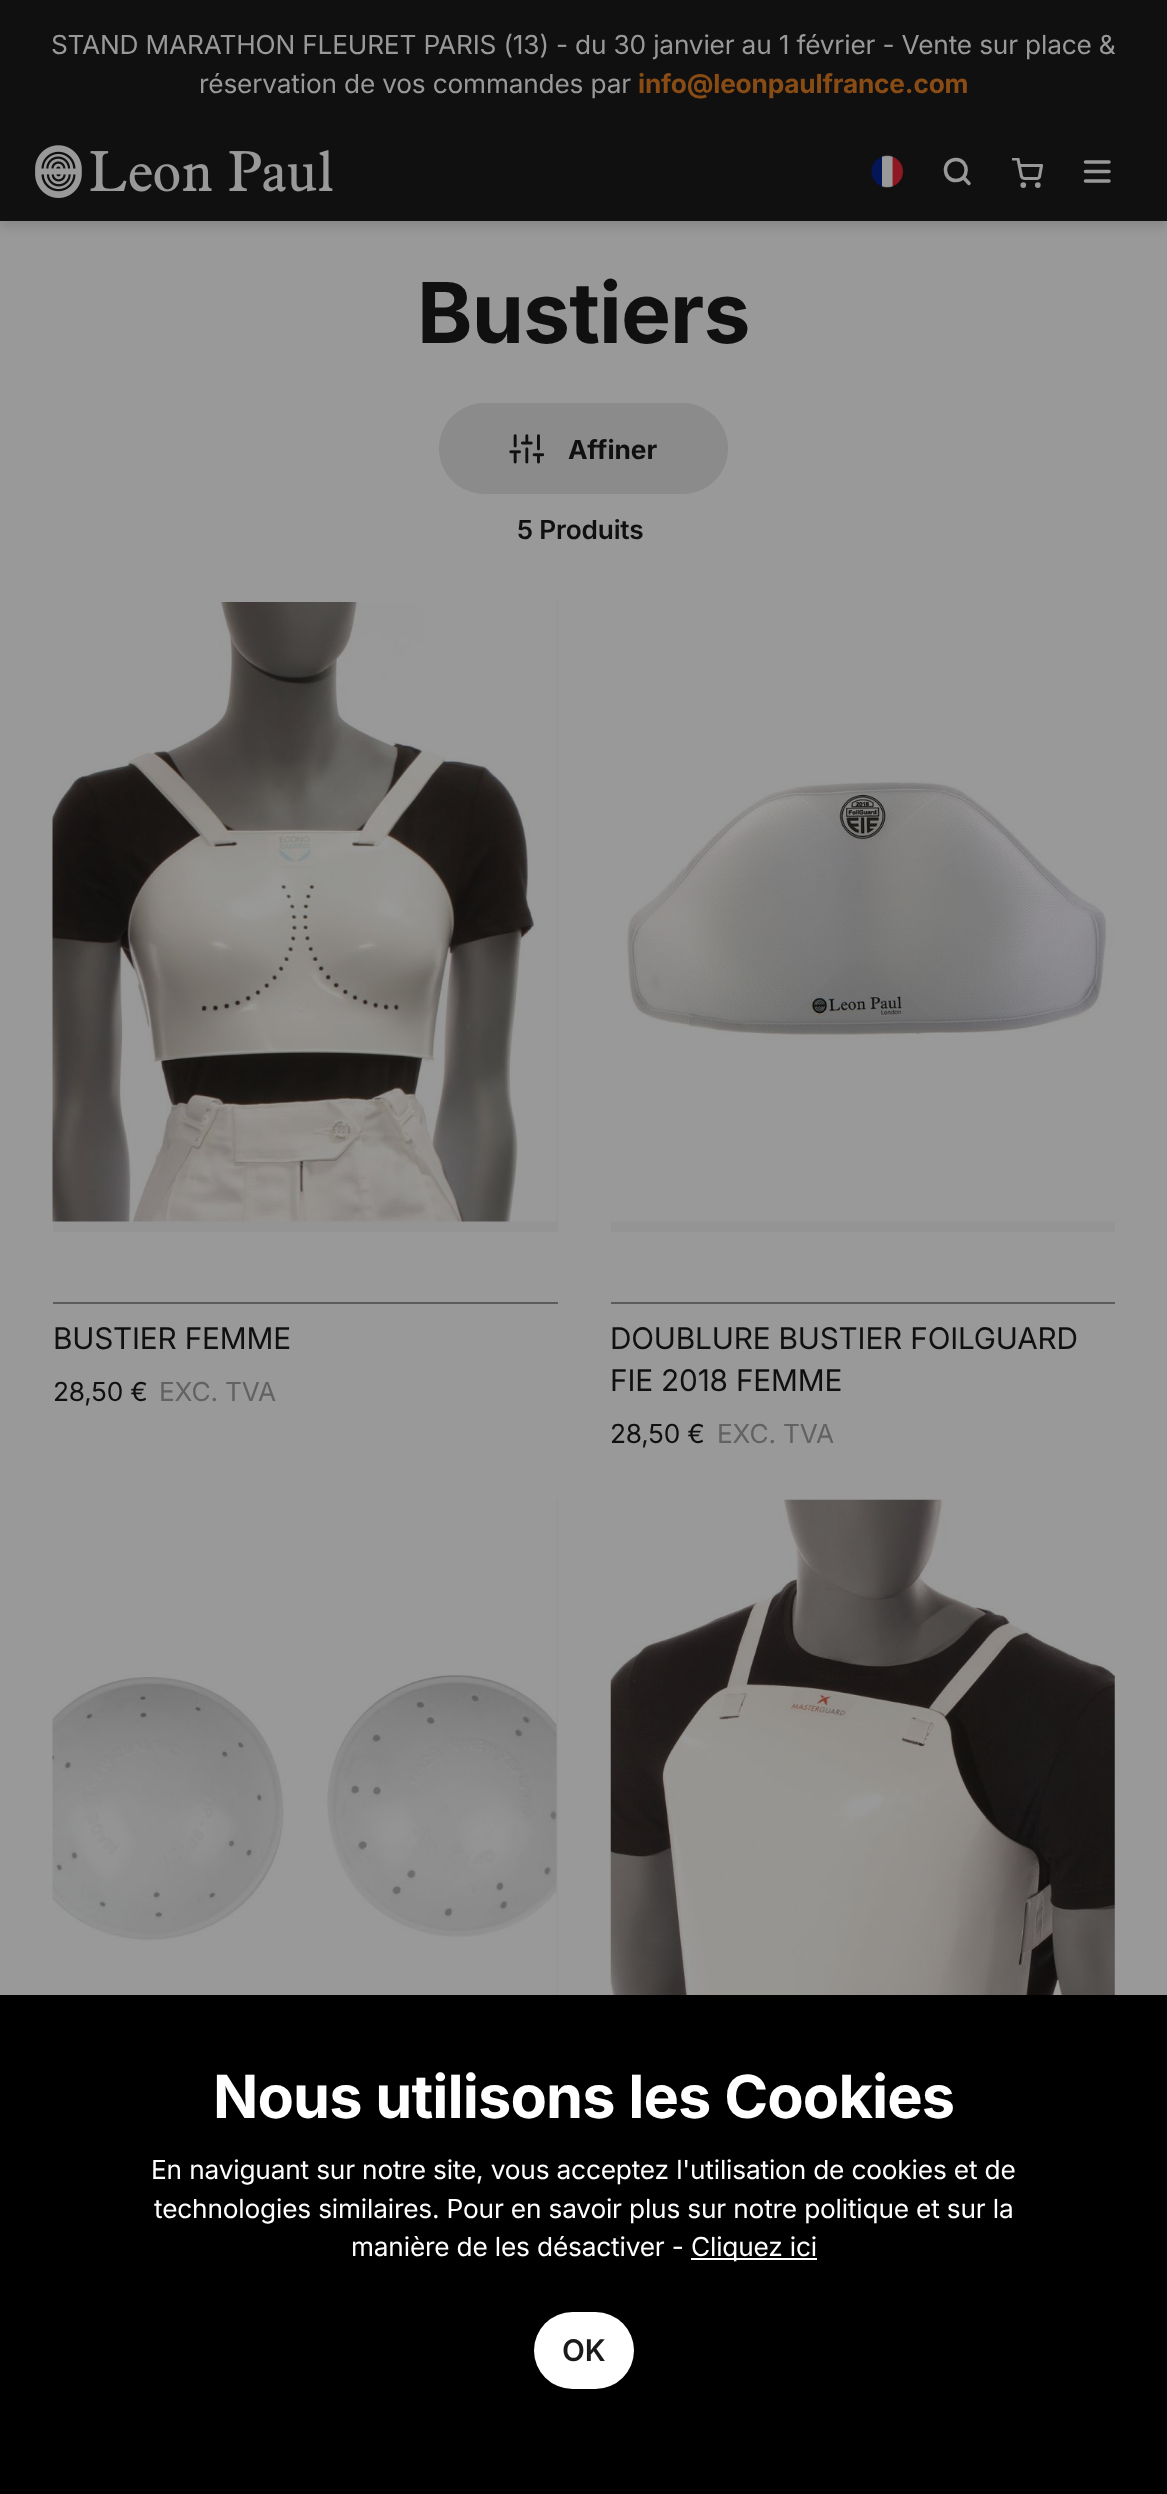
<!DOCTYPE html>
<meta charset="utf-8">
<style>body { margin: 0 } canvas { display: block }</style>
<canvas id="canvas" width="1167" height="2494"></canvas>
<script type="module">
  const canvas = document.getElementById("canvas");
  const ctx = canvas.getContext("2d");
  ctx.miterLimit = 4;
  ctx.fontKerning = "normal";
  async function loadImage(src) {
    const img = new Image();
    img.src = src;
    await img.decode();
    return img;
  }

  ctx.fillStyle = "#999999";
  ctx.fillRect(0, 0, 1167, 2494);
  ctx.fillStyle = "#101010";
  ctx.fillRect(0, 0, 1167, 123);
  ctx.letterSpacing = "-0.18px";
  ctx.font = "26.25px Inter";
  ctx.fillStyle = "#999999";
  ctx.fillText("STAND MARATHON FLEURET PARIS (13) - du 30 janvier au 1 février - Vente sur place &", 51, 54);
  ctx.fillText("réservation de vos commandes par", 199, 93);
  ctx.font = "bold 26.25px Inter";
  ctx.fillStyle = "#8a4c15";
  ctx.fillText("info@leonpaulfrance.com", 638, 93);
  ctx.fillStyle = "rgba(0, 0, 0, 0.1)";
  ctx.filter = "blur(5px)";
  ctx.beginPath();
  ctx.rect(0, 130, 1167, 98);
  ctx.fill();
  ctx.filter = "none";
  ctx.fillStyle = "#101010";
  ctx.fillRect(0, 123, 1167, 98);
  ctx.drawImage(await loadImage("img1.png"), 35, 145, 298, 53);
  ctx.drawImage(await loadImage("img2.png"), 871, 155, 32, 33);
  ctx.beginPath();
  ctx.moveTo(956, 180.5);
  ctx.bezierCurveTo(969.5, 180.5, 969.5, 159.5, 956, 159.5);
  ctx.bezierCurveTo(942, 159.5, 942, 180.5, 956, 180.5);
  ctx.moveTo(969, 183.5);
  ctx.lineTo(963.5, 177.5);
  ctx.strokeStyle = "#999999";
  ctx.lineWidth = 3.5;
  ctx.lineCap = "round";
  ctx.lineJoin = "round";
  ctx.stroke();
  ctx.beginPath();
  ctx.arc(1023.3, 185.1, 1.3, 0, Math.PI * 2);
  ctx.lineWidth = 3.1;
  ctx.stroke();
  ctx.beginPath();
  ctx.arc(1037.8, 185.1, 1.3, 0, Math.PI * 2);
  ctx.stroke();
  ctx.save();
  ctx.beginPath();
  ctx.rect(1012, 158, 31, 31);
  ctx.clip();
  ctx.beginPath();
  ctx.moveTo(1013, 159);
  ctx.lineTo(1018, 159);
  ctx.lineTo(1021.5, 176.5);
  ctx.bezierCurveTo(1022, 177.5, 1023, 178.5, 1024, 178.5);
  ctx.lineTo(1037, 178.5);
  ctx.bezierCurveTo(1038, 178.5, 1039.5, 177.5, 1039.5, 176.5);
  ctx.lineTo(1041.5, 165.5);
  ctx.lineTo(1019.5, 165.5);
  ctx.stroke();
  ctx.restore();
  ctx.beginPath();
  ctx.moveTo(1085.5, 171.5);
  ctx.lineTo(1109, 171.5);
  ctx.moveTo(1085.5, 162);
  ctx.lineTo(1109, 162);
  ctx.moveTo(1085.5, 181);
  ctx.lineTo(1109, 181);
  ctx.lineWidth = 3.5;
  ctx.stroke();
  ctx.letterSpacing = "-0.9px";
  ctx.font = "bold 84px Inter";
  ctx.fillText("Bustiers", 417, 343);
  ctx.fillStyle = "#8b8b8b";
  ctx.beginPath();
  ctx.roundRect(439, 403, 289, 91, 45.5);
  ctx.fill();
  ctx.drawImage(await loadImage("img3.png"), 509, 434, 35, 30);
  ctx.letterSpacing = "0px";
  ctx.font = "bold 26.25px Inter";
  ctx.fillStyle = "#101010";
  ctx.fillText("Affiner", 568, 459);
  ctx.letterSpacing = "-0.18px";
  ctx.font = "600 26.25px Inter";
  ctx.fillText("5 Produits", 517, 539);
  ctx.fillStyle = "#949494";
  ctx.fillRect(53, 602, 505, 630);
  ctx.drawImage(await loadImage("img4.png"), 52, 602, 505, 620);
  ctx.fillStyle = "#5b5b5b";
  ctx.fillRect(53, 1302, 505, 2);
  ctx.font = "29.75px Inter";
  ctx.fillStyle = "#101010";
  ctx.fillText("BUSTIER FEMME", 53, 1349);
  ctx.font = "26.25px Inter";
  ctx.fillText("28,50 €", 53, 1401);
  ctx.fillStyle = "#626262";
  ctx.fillText("EXC. TVA", 159, 1401);
  ctx.fillStyle = "#949494";
  ctx.fillRect(611, 602, 504, 630);
  ctx.drawImage(await loadImage("img5.png"), 611, 602, 504, 620);
  ctx.fillStyle = "#5b5b5b";
  ctx.fillRect(611, 1302, 504, 2);
  ctx.font = "29.75px Inter";
  ctx.fillStyle = "#101010";
  ctx.fillText("DOUBLURE BUSTIER FOILGUARD", 610, 1349);
  ctx.fillText("FIE 2018 FEMME", 610, 1391);
  ctx.font = "26.25px Inter";
  ctx.fillText("28,50 €", 610, 1443);
  ctx.fillStyle = "#626262";
  ctx.fillText("EXC. TVA", 717, 1443);
  ctx.fillStyle = "#949494";
  ctx.fillRect(556, 1500, 2, 495);
  ctx.drawImage(await loadImage("img6.png"), 52, 1500, 505, 495);
  ctx.drawImage(await loadImage("img7.png"), 610, 1499, 505, 496);
  ctx.fillStyle = "#000000";
  ctx.fillRect(0, 1995, 1167, 499);
  ctx.letterSpacing = "-0.9px";
  ctx.wordSpacing = "0.5px";
  ctx.font = "bold 59.5px Inter";
  ctx.fillStyle = "#ffffff";
  ctx.fillText("Nous utilisons les Cookies", 213, 2118);
  ctx.letterSpacing = "-0.18px";
  ctx.wordSpacing = "0px";
  ctx.font = "26.25px Inter";
  ctx.fillText("En naviguant sur notre site, vous acceptez l'utilisation de cookies et de", 151, 2179);
  ctx.fillText("technologies similaires. Pour en savoir plus sur notre politique et sur la", 154, 2218);
  ctx.fillText("manière de les désactiver -", 351, 2256);
  ctx.fillRect(691, 2258, 126, 2);
  ctx.fillText("Cliquez ici", 691, 2256);
  ctx.beginPath();
  ctx.roundRect(534, 2312, 100, 77, 38.5);
  ctx.fill();
  ctx.letterSpacing = "0px";
  ctx.font = "600 29.75px Inter";
  ctx.fillStyle = "#1a1a1a";
  ctx.fillText("OK", 562, 2361);
</script>
